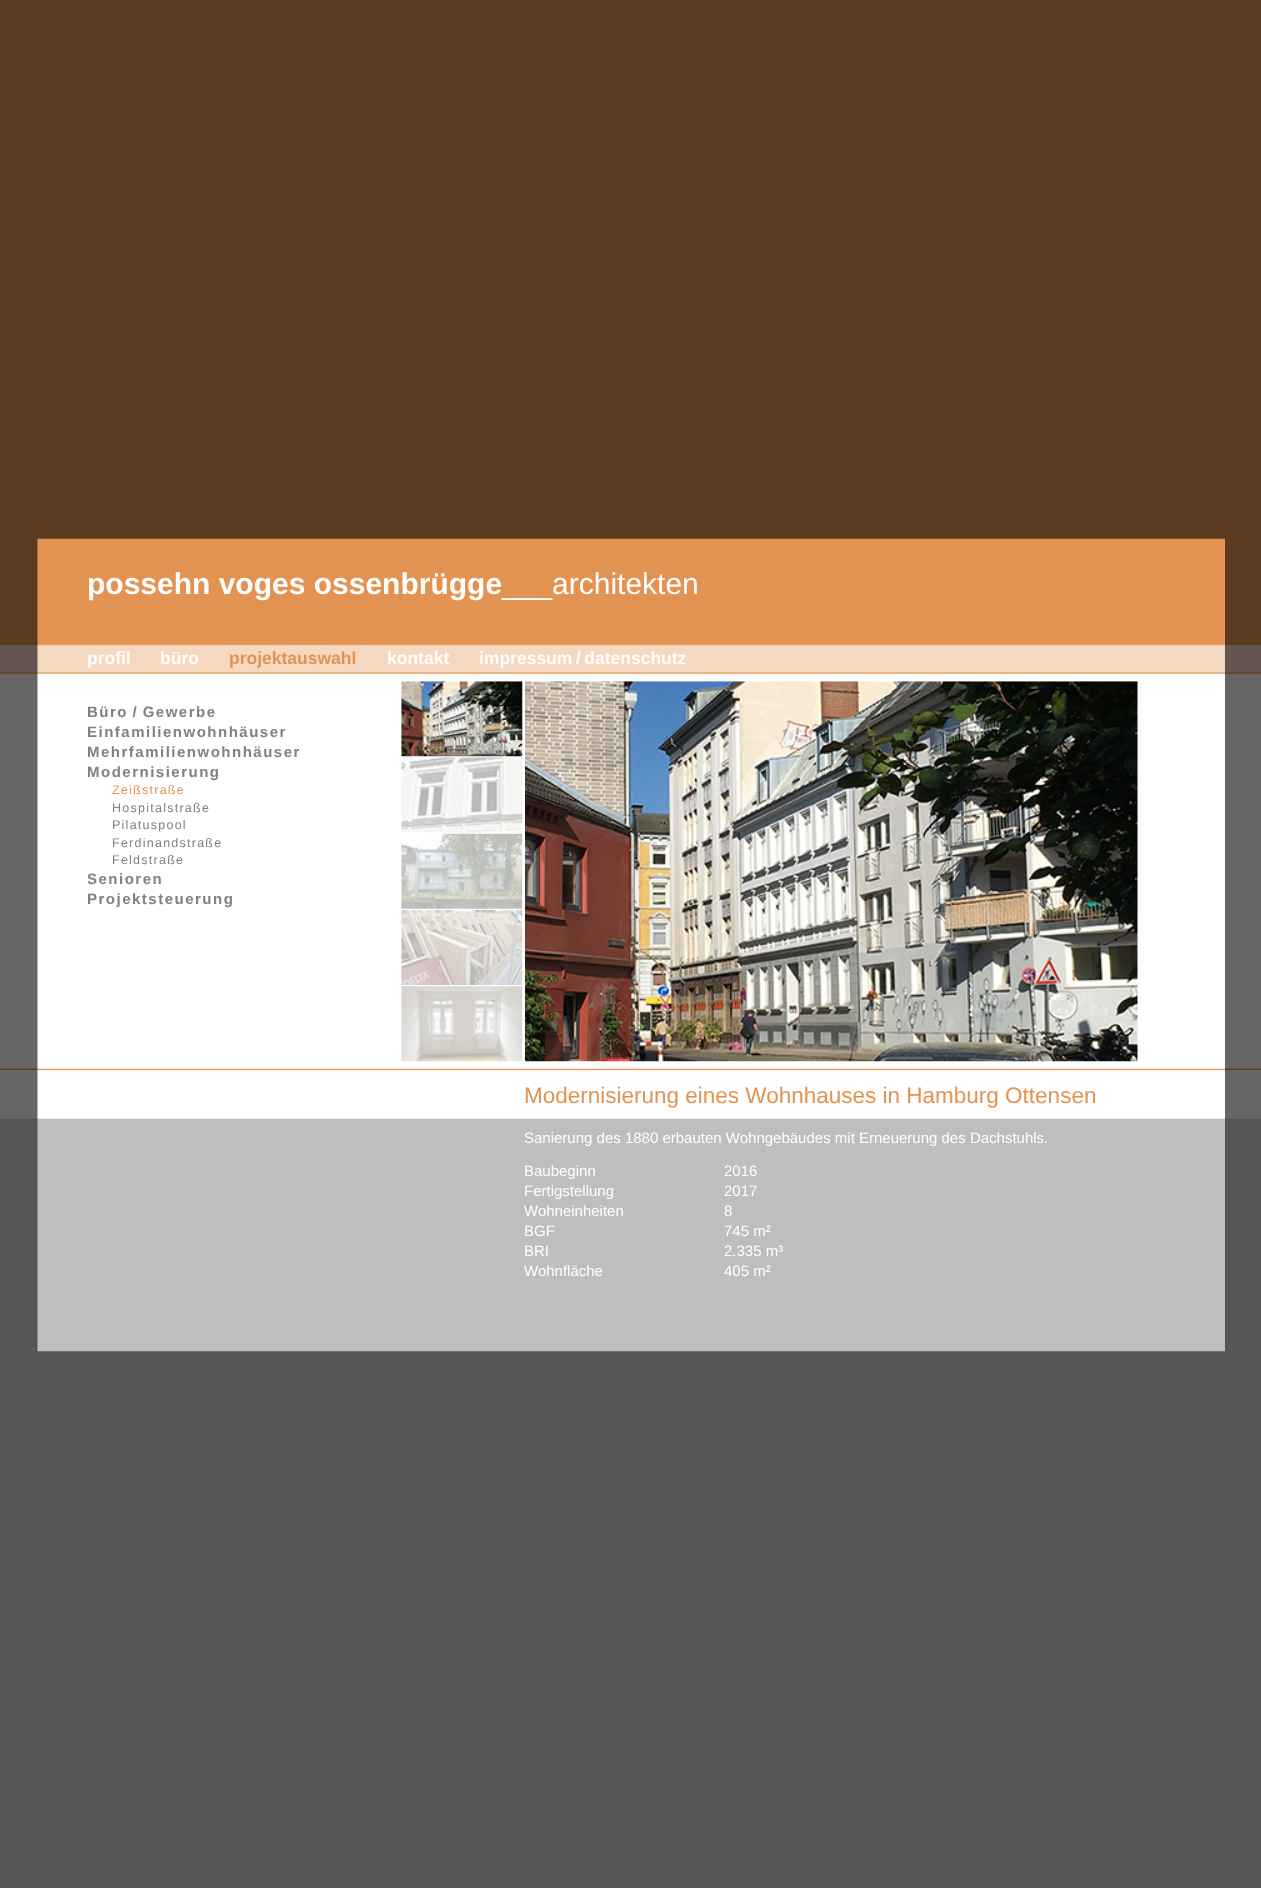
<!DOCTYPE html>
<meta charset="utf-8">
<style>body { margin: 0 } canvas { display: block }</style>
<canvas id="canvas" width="1261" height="1888"></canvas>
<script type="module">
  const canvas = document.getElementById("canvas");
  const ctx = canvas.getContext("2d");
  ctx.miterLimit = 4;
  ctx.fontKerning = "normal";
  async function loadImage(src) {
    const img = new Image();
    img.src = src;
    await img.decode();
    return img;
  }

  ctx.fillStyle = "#5a3b1f";
  ctx.fillRect(0, 0, 1261, 1888);
  ctx.drawImage(await loadImage("img1.png"), 0, 1351, 1261, 537);
  ctx.drawImage(await loadImage("img2.png"), 0, 539, 1261, 812);
  ctx.drawImage(await loadImage("img3.png"), 37, 538, 1188, 814);
  ctx.font = "bold 30px Liberation Sans";
  ctx.fillStyle = "#ffffff";
  ctx.fillText("possehn voges ossenbrügge", 87, 594);
  ctx.font = "30px Liberation Sans";
  ctx.fillText("___architekten", 502, 594);
  ctx.font = "bold 17.5px Liberation Sans";
  ctx.fillText("profil", 87, 664);
  ctx.fillText("büro", 160, 664);
  ctx.fillStyle = "#e29351";
  ctx.fillText("projektauswahl", 229, 664);
  ctx.fillStyle = "#ffffff";
  ctx.fillText("kontakt", 387, 664);
  ctx.fillText("impressum / datenschutz", 479, 664);
  ctx.save();
  ctx.beginPath();
  ctx.rect(88, 704, 312, 207);
  ctx.clip();
  ctx.letterSpacing = "1.5px";
  ctx.font = "bold 15px Liberation Sans";
  ctx.fillStyle = "#808080";
  ctx.fillText("Büro / Gewerbe", 87, 717);
  ctx.fillText("Einfamilienwohnhäuser", 87, 737);
  ctx.fillText("Mehrfamilienwohnhäuser", 87, 757);
  ctx.fillText("Modernisierung", 87, 777);
  ctx.restore();
  ctx.letterSpacing = "1.25px";
  ctx.font = "12.5px Liberation Sans";
  ctx.fillStyle = "#e29351";
  ctx.fillText("Zeißstraße", 112, 794);
  ctx.fillStyle = "#808080";
  ctx.fillText("Hospitalstraße", 112, 812);
  ctx.fillText("Pilatuspool", 112, 829);
  ctx.fillText("Ferdinandstraße", 112, 847);
  ctx.fillText("Feldstraße", 112, 864);
  ctx.save();
  ctx.beginPath();
  ctx.rect(88, 704, 312, 207);
  ctx.clip();
  ctx.letterSpacing = "1.5px";
  ctx.font = "bold 15px Liberation Sans";
  ctx.fillText("Senioren", 87, 884);
  ctx.fillText("Projektsteuerung", 87, 904);
  ctx.restore();
  ctx.drawImage(await loadImage("img4.png"), 401, 681, 122, 76);
  ctx.drawImage(await loadImage("img5.png"), 401, 757, 122, 76);
  ctx.drawImage(await loadImage("img6.png"), 401, 833, 122, 76);
  ctx.drawImage(await loadImage("img7.png"), 401, 910, 122, 75);
  ctx.drawImage(await loadImage("img8.png"), 401, 986, 122, 76);
  ctx.drawImage(await loadImage("img9.png"), 525, 681, 613, 381);
  ctx.letterSpacing = "0px";
  ctx.font = "22.5px Liberation Sans";
  ctx.fillStyle = "#e29351";
  ctx.fillText("Modernisierung eines Wohnhauses in Hamburg Ottensen", 524, 1103);
  ctx.font = "15px Liberation Sans";
  ctx.fillStyle = "#ffffff";
  ctx.fillText("Sanierung des 1880 erbauten Wohngebäudes mit Erneuerung des Dachstuhls.", 524, 1143);
  ctx.fillText("Baubeginn", 524, 1176);
  ctx.fillText("2016", 724, 1176);
  ctx.fillText("Fertigstellung", 524, 1196);
  ctx.fillText("2017", 724, 1196);
  ctx.fillText("Wohneinheiten", 524, 1216);
  ctx.fillText("8", 724, 1216);
  ctx.fillText("BGF", 524, 1236);
  ctx.fillText("745 m²", 724, 1236);
  ctx.fillText("BRI", 524, 1256);
  ctx.fillText("2.335 m³", 724, 1256);
  ctx.fillText("Wohnfläche", 524, 1276);
  ctx.fillText("405 m²", 724, 1276);
</script>
